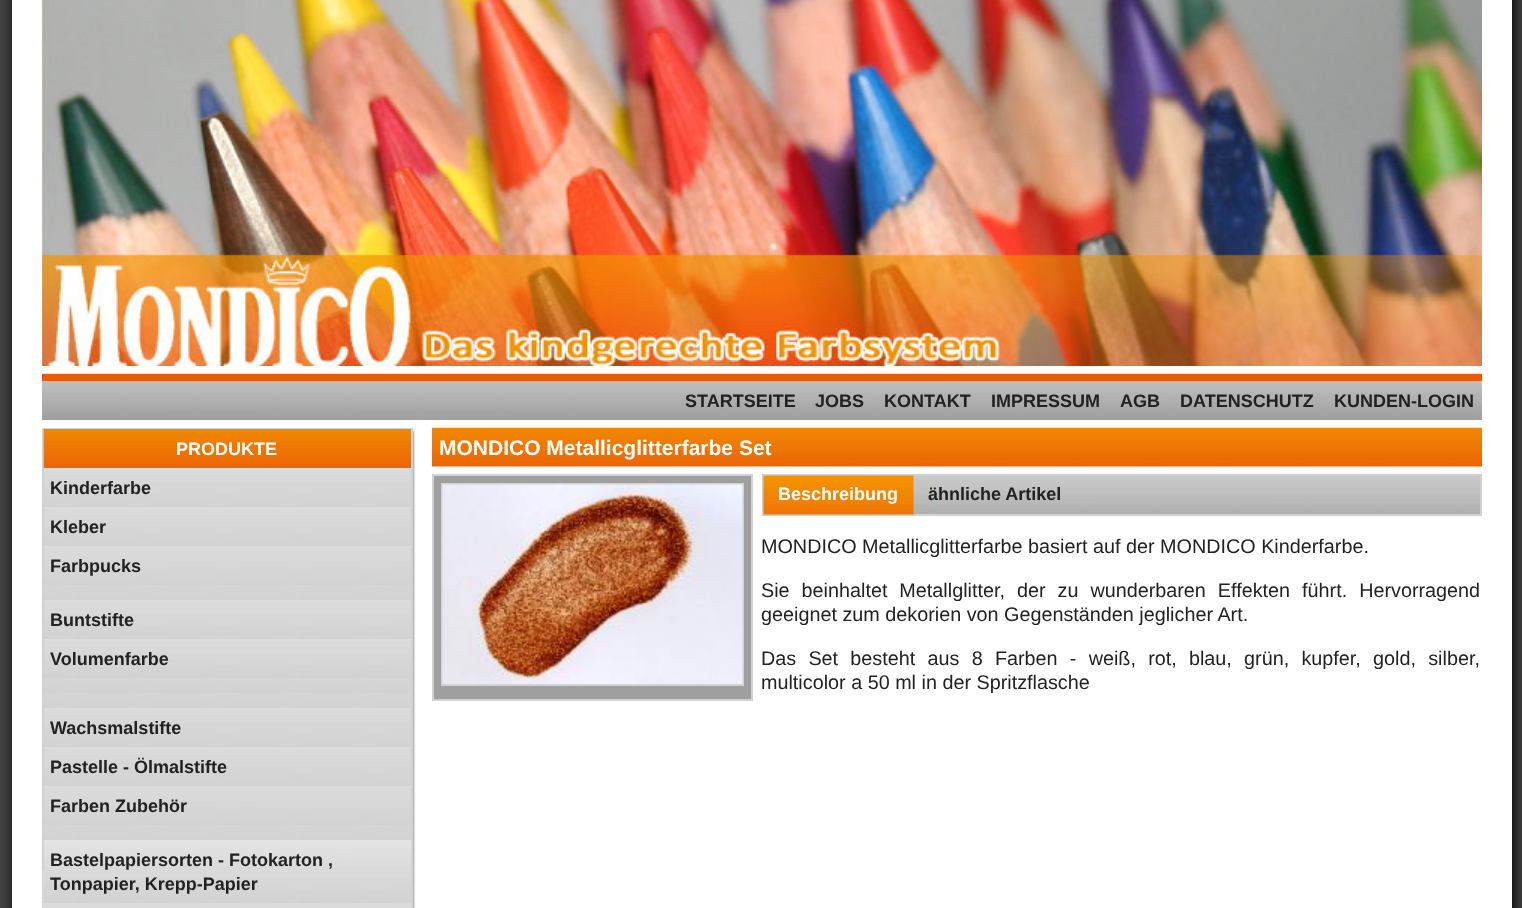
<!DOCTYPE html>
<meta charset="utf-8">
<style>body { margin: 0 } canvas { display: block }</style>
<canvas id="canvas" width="1522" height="908"></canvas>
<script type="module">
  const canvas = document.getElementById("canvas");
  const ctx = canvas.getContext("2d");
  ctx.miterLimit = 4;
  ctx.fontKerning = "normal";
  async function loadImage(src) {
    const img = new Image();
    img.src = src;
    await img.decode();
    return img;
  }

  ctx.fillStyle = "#444444";
  ctx.fillRect(0, 0, 1522, 908);
  ctx.fillStyle = "#000000";
  ctx.filter = "blur(7.5px)";
  ctx.beginPath();
  ctx.rect(14, -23, 1500, 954);
  ctx.fill();
  ctx.filter = "none";
  ctx.fillStyle = "#ffffff";
  ctx.fillRect(12, 0, 1500, 908);
  ctx.drawImage(await loadImage("img1.png"), 42, 0, 1440, 366);
  ctx.drawImage(await loadImage("img2.png"), 42, 373, 1440, 47);
  ctx.fillStyle = "#ea5906";
  ctx.fillRect(42, 374, 1440, 7);
  ctx.font = "bold 18px Liberation Sans";
  ctx.fillStyle = "#222222";
  ctx.fillText("STARTSEITE", 685, 407);
  ctx.fillText("JOBS", 815, 407);
  ctx.fillText("KONTAKT", 884, 407);
  ctx.fillText("IMPRESSUM", 991, 407);
  ctx.fillText("AGB", 1120, 407);
  ctx.fillText("DATENSCHUTZ", 1180, 407);
  ctx.fillText("KUNDEN-LOGIN", 1334, 407);
  ctx.save();
  ctx.beginPath();
  ctx.rect(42, 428, 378, 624);
  ctx.clip();
  ctx.fillStyle = "#333333";
  ctx.filter = "blur(1.5px)";
  ctx.beginPath();
  ctx.rect(42, 431, 371, 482);
  ctx.fill();
  ctx.filter = "none";
  ctx.restore();
  ctx.strokeStyle = "#d2d2d2";
  ctx.lineWidth = 2;
  ctx.strokeRect(43, 429, 369, 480);
  ctx.drawImage(await loadImage("img3.png"), 43, 429, 368, 39);
  ctx.fillStyle = "#ffffff";
  ctx.fillText("PRODUKTE", 176, 455);
  ctx.drawImage(await loadImage("img4.png"), 43, 870, 1, 38);
  ctx.drawImage(await loadImage("img5.png"), 44, 468, 367, 39);
  ctx.fillStyle = "#222222";
  ctx.fillText("Kinderfarbe", 50, 494);
  ctx.drawImage(await loadImage("img5.png"), 44, 507, 367, 39);
  ctx.fillText("Kleber", 50, 533);
  ctx.drawImage(await loadImage("img5.png"), 44, 546, 367, 39);
  ctx.fillText("Farbpucks", 50, 572);
  ctx.drawImage(await loadImage("img6.png"), 44, 585, 367, 15);
  ctx.drawImage(await loadImage("img5.png"), 44, 600, 367, 39);
  ctx.fillText("Buntstifte", 50, 626);
  ctx.drawImage(await loadImage("img5.png"), 44, 639, 367, 39);
  ctx.fillText("Volumenfarbe", 50, 665);
  ctx.drawImage(await loadImage("img6.png"), 44, 678, 367, 15);
  ctx.drawImage(await loadImage("img6.png"), 44, 693, 367, 15);
  ctx.drawImage(await loadImage("img5.png"), 44, 708, 367, 39);
  ctx.fillText("Wachsmalstifte", 50, 734);
  ctx.drawImage(await loadImage("img5.png"), 44, 747, 367, 39);
  ctx.fillText("Pastelle - Ölmalstifte", 50, 773);
  ctx.drawImage(await loadImage("img7.png"), 44, 786, 367, 39);
  ctx.fillText("Farben Zubehör", 50, 812);
  ctx.drawImage(await loadImage("img6.png"), 44, 825, 367, 15);
  ctx.drawImage(await loadImage("img8.png"), 43, 840, 368, 63);
  ctx.fillText("Bastelpapiersorten - Fotokarton ,", 50, 866);
  ctx.fillText("Tonpapier, Krepp-Papier", 50, 890);
  ctx.fillStyle = "#dbdbdb";
  ctx.fillRect(44, 903, 367, 5);
  ctx.drawImage(await loadImage("img9.png"), 432, 427, 1050, 40);
  ctx.font = "bold 21px Liberation Sans";
  ctx.fillStyle = "#ffffff";
  ctx.fillText("MONDICO Metallicglitterfarbe Set", 439, 455);
  ctx.fillStyle = "#9f9f9f";
  ctx.beginPath();
  ctx.rect(433, 475, 319, 225);
  ctx.fill();
  ctx.stroke();
  ctx.strokeRect(442, 484, 301, 201);
  ctx.drawImage(await loadImage("img10.png"), 442, 484, 301, 200);
  ctx.drawImage(await loadImage("img11.png"), 913, 476, 567, 38);
  ctx.strokeRect(763, 475, 718, 40);
  ctx.drawImage(await loadImage("img12.png"), 763, 475, 151, 40);
  ctx.font = "bold 18px Liberation Sans";
  ctx.fillStyle = "#ffffff";
  ctx.fillText("Beschreibung", 778, 500);
  ctx.fillStyle = "#222222";
  ctx.fillText("ähnliche Artikel", 928, 500);
  ctx.font = "19.8px Liberation Sans";
  ctx.fillText("MONDICO Metallicglitterfarbe basiert auf der MONDICO Kinderfarbe.", 761, 553);
  ctx.wordSpacing = "6.5px";
  ctx.fillText("Sie beinhaltet Metallglitter, der zu wunderbaren Effekten führt. Hervorragend", 761, 597);
  ctx.wordSpacing = "0px";
  ctx.fillText("geeignet zum dekorien von Gegenständen jeglicher Art.", 761, 621);
  ctx.wordSpacing = "6.75px";
  ctx.fillText("Das Set besteht aus 8 Farben - weiß, rot, blau, grün, kupfer, gold, silber,", 761, 665);
  ctx.wordSpacing = "0px";
  ctx.fillText("multicolor a 50 ml in der Spritzflasche", 761, 689);
</script>
